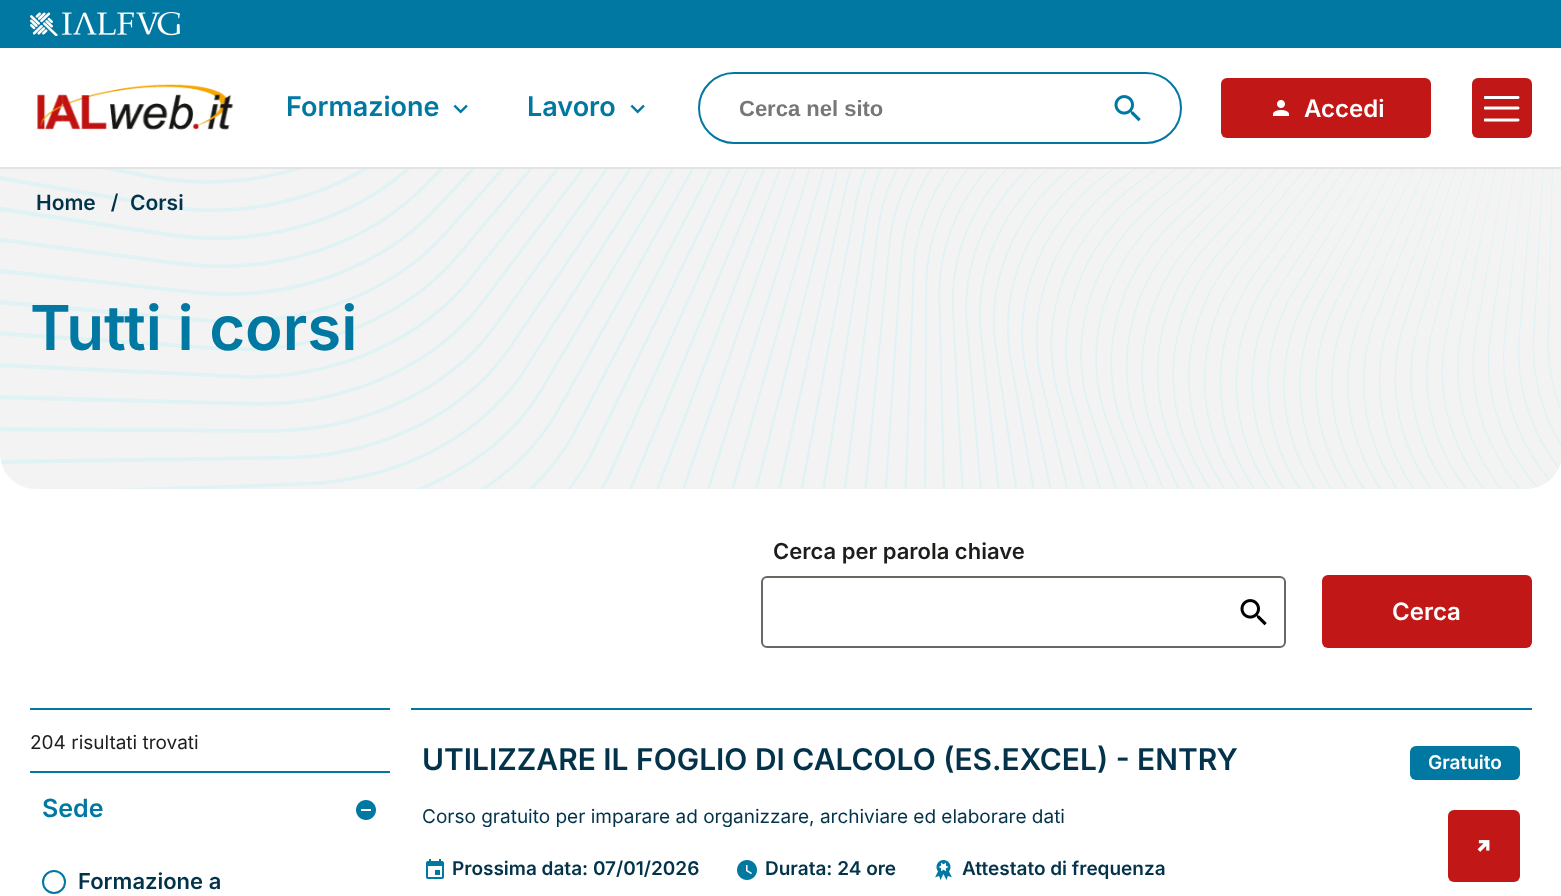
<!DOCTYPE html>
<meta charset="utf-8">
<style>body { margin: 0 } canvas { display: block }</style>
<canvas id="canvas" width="1561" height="896"></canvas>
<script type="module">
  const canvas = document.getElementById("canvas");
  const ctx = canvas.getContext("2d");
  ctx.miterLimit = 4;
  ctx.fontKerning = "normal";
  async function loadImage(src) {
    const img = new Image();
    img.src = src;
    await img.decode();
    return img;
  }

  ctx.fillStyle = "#ffffff";
  ctx.fillRect(0, 0, 1561, 896);
  ctx.fillStyle = "#0078a1";
  ctx.fillRect(0, 0, 1561, 48);
  ctx.drawImage(await loadImage("img1.png"), 30, 12, 150, 24);
  ctx.drawImage(await loadImage("img2.png"), 37, 84, 197, 46);
  ctx.font = "600 27px Inter";
  ctx.fillText("Formazione", 286, 116);
  ctx.drawImage(await loadImage("img3.png"), 453, 104, 15, 10);
  ctx.fillText("Lavoro", 527, 116);
  ctx.drawImage(await loadImage("img3.png"), 630, 104, 15, 10);
  ctx.beginPath();
  ctx.roundRect(699, 73, 482, 70, 35);
  ctx.strokeStyle = "#0078a1";
  ctx.lineWidth = 2;
  ctx.stroke();
  ctx.font = "bold 22px Liberation Sans";
  ctx.fillStyle = "#777776";
  ctx.fillText("Cerca nel sito", 739, 116);
  ctx.drawImage(await loadImage("img4.png"), 1114, 95, 27, 27);
  ctx.fillStyle = "#c11717";
  ctx.beginPath();
  ctx.roundRect(1221, 78, 210, 60, 6);
  ctx.fill();
  ctx.drawImage(await loadImage("img5.png"), 1273, 100, 16, 16);
  ctx.font = "600 24px Inter";
  ctx.fillStyle = "#ffffff";
  ctx.fillText("Accedi", 1304, 117);
  ctx.fillStyle = "#c11717";
  ctx.beginPath();
  ctx.roundRect(1472, 78, 60, 60, 6);
  ctx.fill();
  ctx.drawImage(await loadImage("img6.png"), 1484, 96, 36, 26);
  ctx.fillStyle = "#f3f3f3";
  ctx.beginPath();
  ctx.moveTo(0, 168);
  ctx.lineTo(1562, 168);
  ctx.lineTo(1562, 453);
  ctx.bezierCurveTo(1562, 473, 1546, 489, 1526, 489);
  ctx.lineTo(36, 489);
  ctx.bezierCurveTo(16, 489, 0, 473, 0, 453);
  ctx.closePath();
  ctx.fill();
  ctx.fillStyle = "#e3e3e3";
  ctx.fillRect(0, 167, 1561, 2);
  ctx.drawImage(await loadImage("img7.png"), 0, 169, 1561, 320);
  ctx.font = "600 21px Inter";
  ctx.fillStyle = "#02334a";
  ctx.fillText("Home", 36, 210);
  ctx.beginPath();
  ctx.moveTo(118, 193.5);
  ctx.lineTo(113.5, 211.5);
  ctx.lineTo(111, 211.5);
  ctx.lineTo(116, 193.5);
  ctx.closePath();
  ctx.fill();
  ctx.fillText("Corsi", 130, 210);
  ctx.font = "600 61.75px Inter";
  ctx.fillStyle = "#0078a1";
  ctx.fillText("Tutti i corsi", 30, 350);
  ctx.font = "600 22px Inter";
  ctx.fillStyle = "#1d1d1b";
  ctx.fillText("Cerca per parola chiave", 773, 559);
  ctx.drawImage(await loadImage("img8.png"), 1240, 599, 27, 27);
  ctx.beginPath();
  ctx.roundRect(762, 577, 523, 70, 5);
  ctx.strokeStyle = "#696963";
  ctx.stroke();
  ctx.fillStyle = "#c11717";
  ctx.beginPath();
  ctx.roundRect(1322, 575, 210, 73, 6);
  ctx.fill();
  ctx.font = "600 24px Inter";
  ctx.fillStyle = "#ffffff";
  ctx.fillText("Cerca", 1392, 620);
  ctx.fillStyle = "#0078a1";
  ctx.fillRect(30, 708, 360, 2);
  ctx.font = "19px Inter";
  ctx.fillStyle = "#1d1d1b";
  ctx.fillText("204 risultati trovati", 30, 749);
  ctx.fillStyle = "#0078a1";
  ctx.fillRect(30, 771, 360, 2);
  ctx.font = "600 25px Inter";
  ctx.fillText("Sede", 42, 817);
  ctx.drawImage(await loadImage("img9.png"), 356, 800, 20, 20);
  ctx.beginPath();
  ctx.arc(54, 882, 11, 0, Math.PI * 2);
  ctx.strokeStyle = "#0078a1";
  ctx.stroke();
  ctx.font = "600 22px Inter";
  ctx.fillStyle = "#02334a";
  ctx.fillText("Formazione a", 78, 889);
  ctx.fillStyle = "#0078a1";
  ctx.fillRect(411, 708, 1121, 2);
  ctx.font = "600 29.95px Inter";
  ctx.fillStyle = "#02334a";
  ctx.fillText("UTILIZZARE IL FOGLIO DI CALCOLO (ES.EXCEL) - ENTRY", 422, 770);
  ctx.fillStyle = "#0078a1";
  ctx.beginPath();
  ctx.roundRect(1410, 746, 110, 34, 6);
  ctx.fill();
  ctx.font = "600 19px Inter";
  ctx.fillStyle = "#ffffff";
  ctx.fillText("Gratuito", 1428, 769);
  ctx.font = "19px Inter";
  ctx.fillStyle = "#02334a";
  ctx.fillText("Corso gratuito per imparare ad organizzare, archiviare ed elaborare dati", 422, 823);
  ctx.drawImage(await loadImage("img10.png"), 426, 859, 18, 20);
  ctx.font = "600 19px Inter";
  ctx.fillText("Prossima data: 07/01/2026", 452, 875);
  ctx.drawImage(await loadImage("img11.png"), 737, 860, 20, 20);
  ctx.fillText("Durata: 24 ore", 765, 875);
  ctx.drawImage(await loadImage("img12.png"), 935, 860, 17, 20);
  ctx.fillText("Attestato di frequenza", 962, 875);
  ctx.fillStyle = "#c11717";
  ctx.beginPath();
  ctx.roundRect(1448, 810, 72, 72, 6);
  ctx.fill();
  ctx.drawImage(await loadImage("img13.png"), 1477, 840, 13, 12);
</script>
